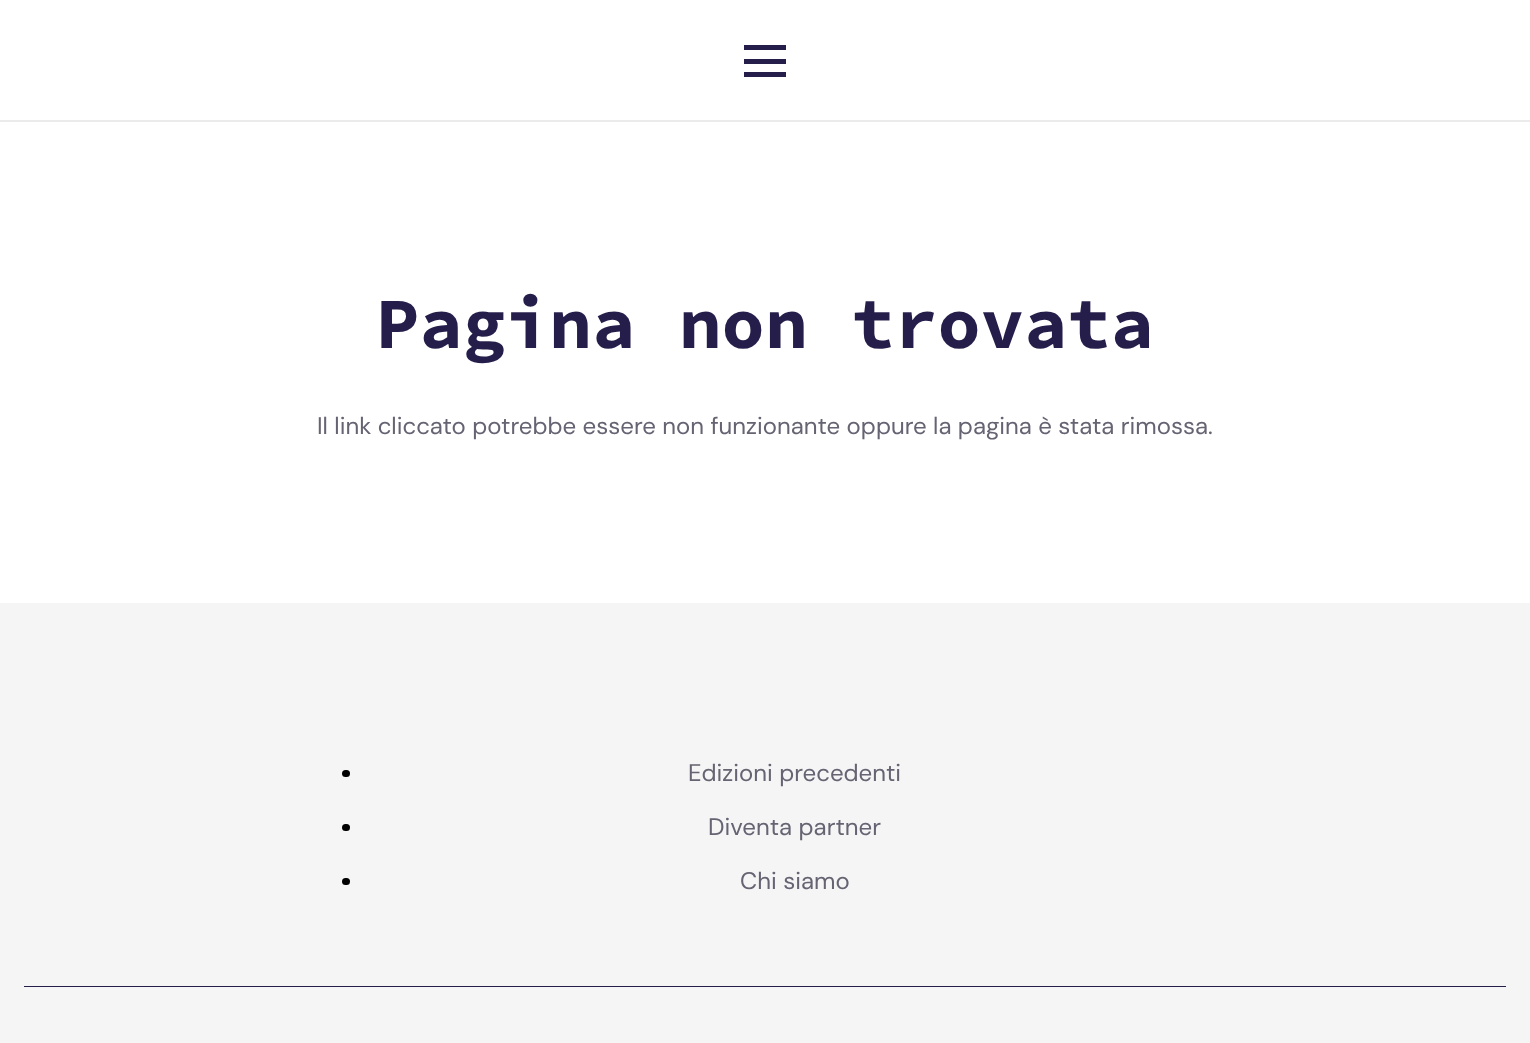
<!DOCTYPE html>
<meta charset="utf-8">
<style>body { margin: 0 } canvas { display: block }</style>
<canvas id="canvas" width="1530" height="1043"></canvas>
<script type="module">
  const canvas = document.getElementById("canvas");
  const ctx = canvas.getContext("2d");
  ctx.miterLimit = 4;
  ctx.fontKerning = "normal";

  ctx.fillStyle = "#f5f5f5";
  ctx.fillRect(0, 0, 1530, 1043);
  ctx.fillStyle = "#ffffff";
  ctx.fillRect(0, 0, 1530, 603);
  ctx.fillStyle = "#ebebeb";
  ctx.fillRect(0, 120, 1530, 2);
  ctx.fillStyle = "#251d4a";
  ctx.fillRect(744, 59, 42, 5);
  ctx.fillRect(744, 45, 42, 5);
  ctx.fillRect(744, 72, 42, 5);
  ctx.font = "bold 72px Source Code Pro";
  ctx.fillText("Pagina non trovata", 376, 348);
  ctx.font = "24px DM Sans";
  ctx.fillStyle = "#666372";
  ctx.fillText("Il link cliccato potrebbe essere non funzionante oppure la pagina è stata rimossa.", 317, 434);
  ctx.fillStyle = "#251d4a";
  ctx.fillRect(24, 986, 1482, 1);
  ctx.fillStyle = "#000000";
  ctx.beginPath();
  ctx.roundRect(342, 770, 8, 7, 3.5);
  ctx.fill();
  ctx.fillStyle = "#666372";
  ctx.fillText("Edizioni precedenti", 688, 781);
  ctx.fillStyle = "#000000";
  ctx.beginPath();
  ctx.roundRect(342, 824, 8, 7, 3.5);
  ctx.fill();
  ctx.fillStyle = "#666372";
  ctx.fillText("Diventa partner", 708, 835);
  ctx.fillStyle = "#000000";
  ctx.beginPath();
  ctx.roundRect(342, 878, 8, 7, 3.5);
  ctx.fill();
  ctx.fillStyle = "#666372";
  ctx.fillText("Chi siamo", 740, 889);
</script>
